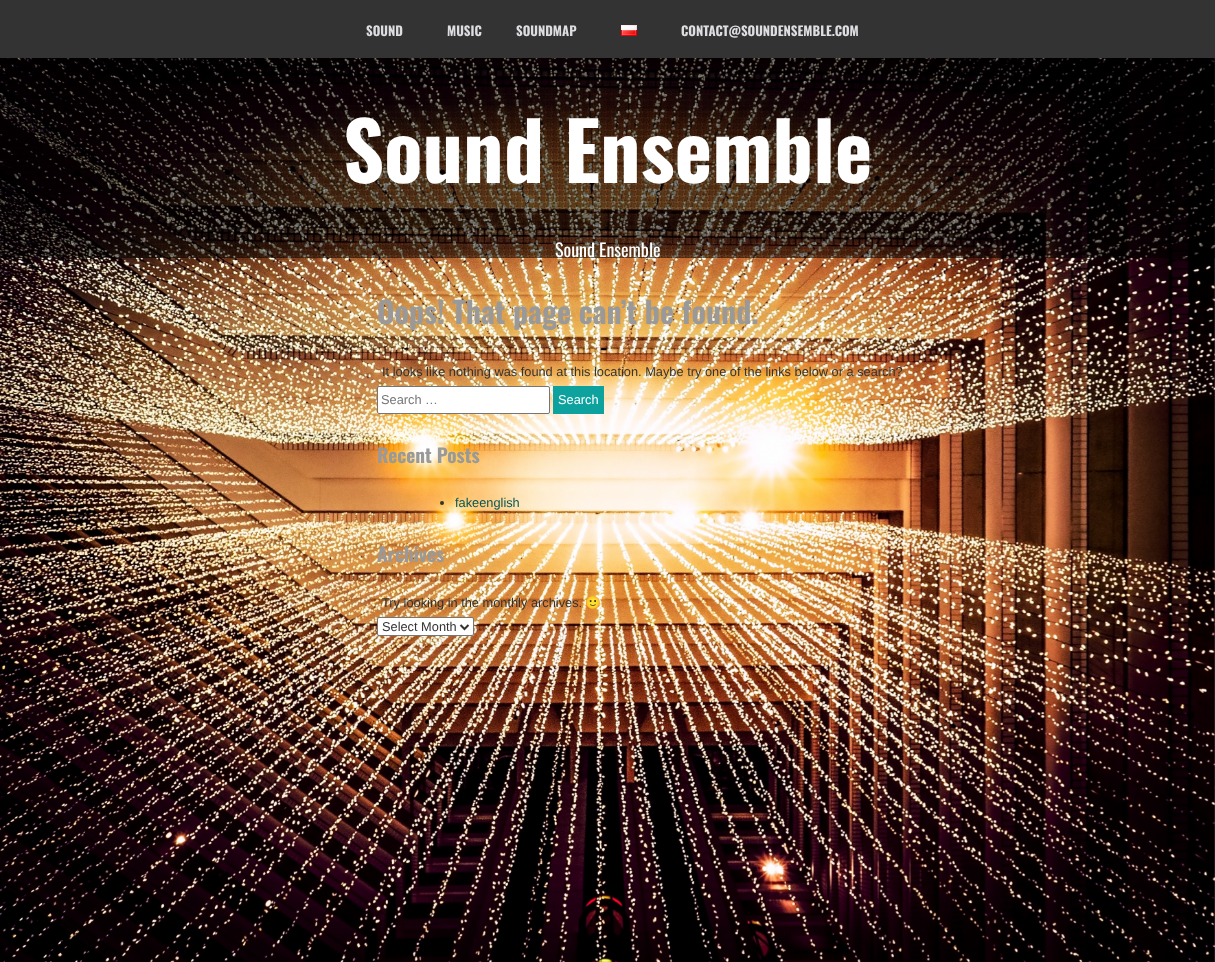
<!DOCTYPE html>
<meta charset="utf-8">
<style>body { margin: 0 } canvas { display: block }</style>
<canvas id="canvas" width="1215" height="962"></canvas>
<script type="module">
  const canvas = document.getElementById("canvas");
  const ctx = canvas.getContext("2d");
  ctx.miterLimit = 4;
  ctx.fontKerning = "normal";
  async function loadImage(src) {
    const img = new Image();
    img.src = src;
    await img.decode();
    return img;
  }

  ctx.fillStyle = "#ffffff";
  ctx.fillRect(0, 0, 1215, 962);
  ctx.drawImage(await loadImage("img1.png"), 0, 58, 1215, 904);
  ctx.fillStyle = "#333333";
  ctx.fillRect(0, 0, 1215, 58);
  ctx.font = "bold 13px Oswald";
  ctx.fillStyle = "#dedee2";
  ctx.fillText("SOUND", 366, 36);
  ctx.fillText("MUSIC", 447, 36);
  ctx.fillText("SOUNDMAP", 516, 36);
  ctx.drawImage(await loadImage("img2.png"), 621, 25, 16, 11);
  ctx.fillText("CONTACT@SOUNDENSEMBLE.COM", 681, 36);
  ctx.fillStyle = "rgba(0, 0, 0, 0.2)";
  ctx.fillRect(0, 58, 1215, 200);
  ctx.drawImage(await loadImage("img3.png"), 0, 58, 1215, 200);
  ctx.font = "bold 80px Oswald";
  ctx.fillStyle = "#ffffff";
  ctx.fillText("Sound Ensemble", 343, 183);
  ctx.font = "18px Oswald";
  ctx.fillText("Sound Ensemble", 555, 257);
  ctx.font = "bold 30px Oswald";
  ctx.fillStyle = "#999999";
  ctx.fillText("Oops! That page can’t be found.", 377, 324);
  ctx.font = "12.8px Liberation Sans";
  ctx.fillStyle = "#333333";
  ctx.fillText("It looks like nothing was found at this location. Maybe try one of the links below or a search?", 382, 376);
  ctx.fillStyle = "#ffffff";
  ctx.beginPath();
  ctx.roundRect(377.5, 386.5, 172, 27, 1.5);
  ctx.fill();
  ctx.strokeStyle = "#767676";
  ctx.stroke();
  ctx.fillStyle = "#757575";
  ctx.fillText("Search …", 381, 404);
  ctx.fillStyle = "#0da29e";
  ctx.fillRect(553, 386, 51, 28);
  ctx.fillStyle = "#ffffff";
  ctx.fillText("Search", 558, 404);
  ctx.font = "bold 19.25px Oswald";
  ctx.fillStyle = "#999999";
  ctx.fillText("Recent Posts", 377, 463);
  ctx.fillStyle = "#333333";
  ctx.beginPath();
  ctx.arc(442, 503, 2, 0, Math.PI * 2);
  ctx.fill();
  ctx.font = "12.8px Liberation Sans";
  ctx.fillStyle = "#075654";
  ctx.fillText("fakeenglish", 455, 507);
  ctx.font = "bold 19.25px Oswald";
  ctx.fillStyle = "#999999";
  ctx.fillText("Archives", 377, 562);
  ctx.font = "12.8px Liberation Sans";
  ctx.fillStyle = "#333333";
  ctx.fillText("Try looking in the monthly archives.", 382, 607);
  ctx.font = "12.8px Noto Color Emoji";
  ctx.fillText("🙂", 585, 607);
  ctx.fillStyle = "#ffffff";
  ctx.beginPath();
  ctx.roundRect(377.5, 617.5, 96, 18, 1.5);
  ctx.fill();
  ctx.stroke();
  ctx.beginPath();
  ctx.moveTo(460.5, 625);
  ctx.lineTo(464.5, 629);
  ctx.lineTo(468.5, 625);
  ctx.strokeStyle = "#333333";
  ctx.lineWidth = 2;
  ctx.stroke();
  ctx.font = "12.8px Liberation Sans";
  ctx.fillStyle = "#333333";
  ctx.fillText("Select Month", 382, 631);
</script>
